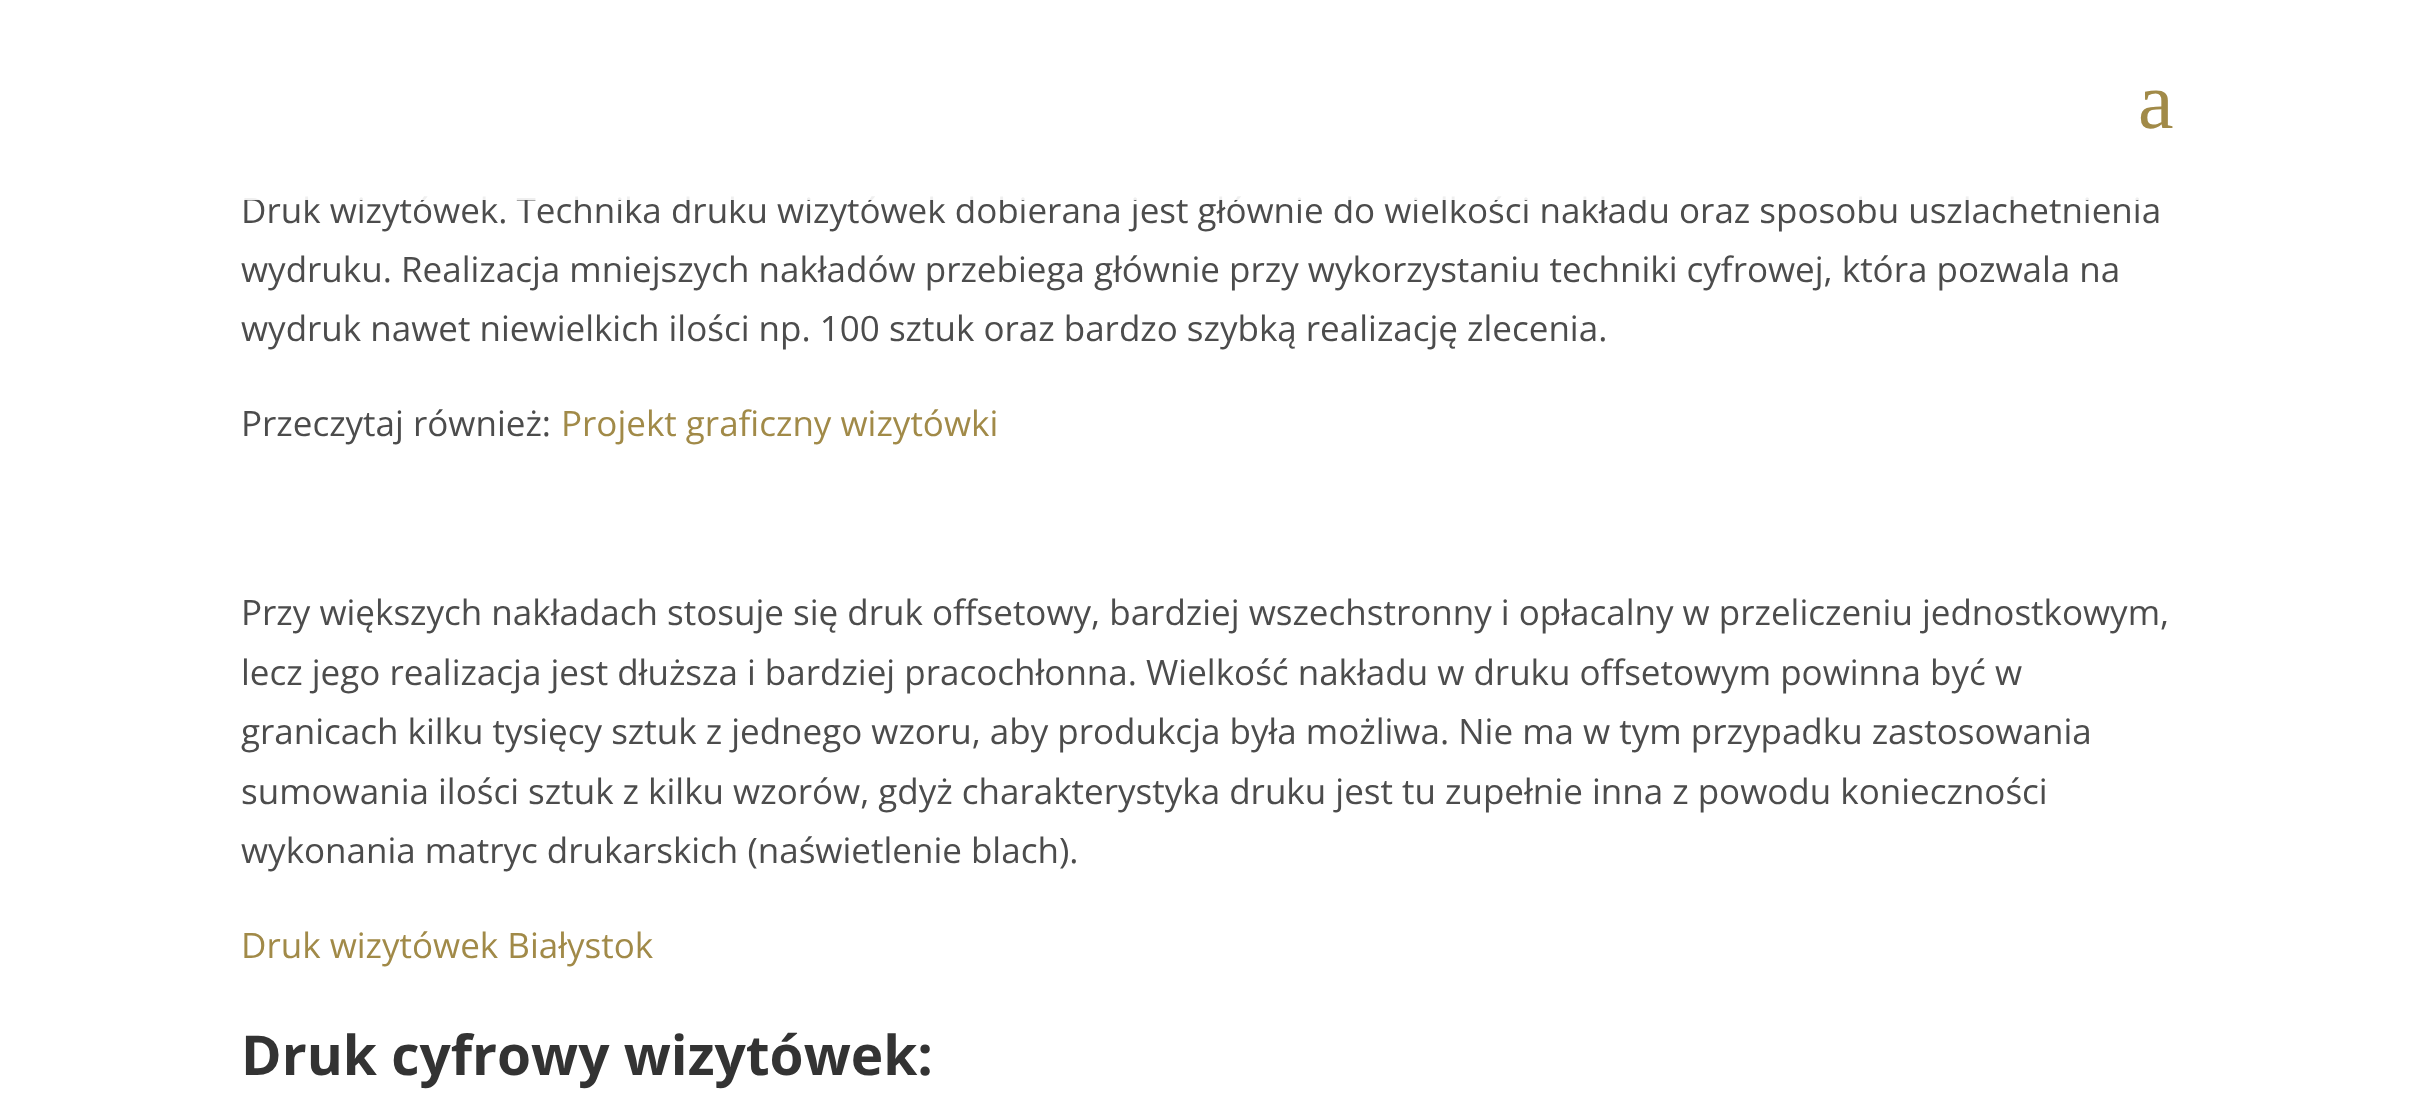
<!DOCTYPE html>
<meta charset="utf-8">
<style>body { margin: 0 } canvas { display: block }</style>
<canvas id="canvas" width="2414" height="1093"></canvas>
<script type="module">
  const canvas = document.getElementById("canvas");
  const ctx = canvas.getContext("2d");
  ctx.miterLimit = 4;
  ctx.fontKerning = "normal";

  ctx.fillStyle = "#ffffff";
  ctx.fillRect(0, 0, 2414, 1093);
  ctx.font = "35px Open Sans";
  ctx.fillStyle = "#4c4c4c";
  ctx.fillText("Druk wizytówek. Technika druku wizytówek dobierana jest głównie do wielkości nakładu oraz sposobu uszlachetnienia", 241, 223);
  ctx.fillStyle = "rgba(255, 255, 255, 0.91)";
  ctx.fillRect(244, 196, 1896, 4);
  ctx.font = "80px Liberation Serif";
  ctx.fillStyle = "#a18a48";
  ctx.fillText("a", 2138, 128);
  ctx.font = "35px Open Sans";
  ctx.fillStyle = "#4c4c4c";
  ctx.fillText("wydruku. Realizacja mniejszych nakładów przebiega głównie przy wykorzystaniu techniki cyfrowej, która pozwala na", 241, 282);
  ctx.fillText("wydruk nawet niewielkich ilości np. 100 sztuk oraz bardzo szybką realizację zlecenia.", 241, 341);
  ctx.fillText("Przeczytaj również:", 241, 436);
  ctx.fillStyle = "#a18a48";
  ctx.fillText("Projekt graficzny wizytówki", 561, 436);
  ctx.fillStyle = "#4c4c4c";
  ctx.fillText("Przy większych nakładach stosuje się druk offsetowy, bardziej wszechstronny i opłacalny w przeliczeniu jednostkowym,", 241, 625);
  ctx.fillText("lecz jego realizacja jest dłuższa i bardziej pracochłonna. Wielkość nakładu w druku offsetowym powinna być w", 241, 685);
  ctx.fillText("granicach kilku tysięcy sztuk z jednego wzoru, aby produkcja była możliwa. Nie ma w tym przypadku zastosowania", 241, 744);
  ctx.fillText("sumowania ilości sztuk z kilku wzorów, gdyż charakterystyka druku jest tu zupełnie inna z powodu konieczności", 241, 804);
  ctx.fillText("wykonania matryc drukarskich (naświetlenie blach).", 241, 863);
  ctx.fillStyle = "#a18a48";
  ctx.fillText("Druk wizytówek Białystok", 241, 958);
  ctx.font = "bold 55px Open Sans";
  ctx.fillStyle = "#333333";
  ctx.fillText("Druk cyfrowy wizytówek:", 241, 1075);
</script>
